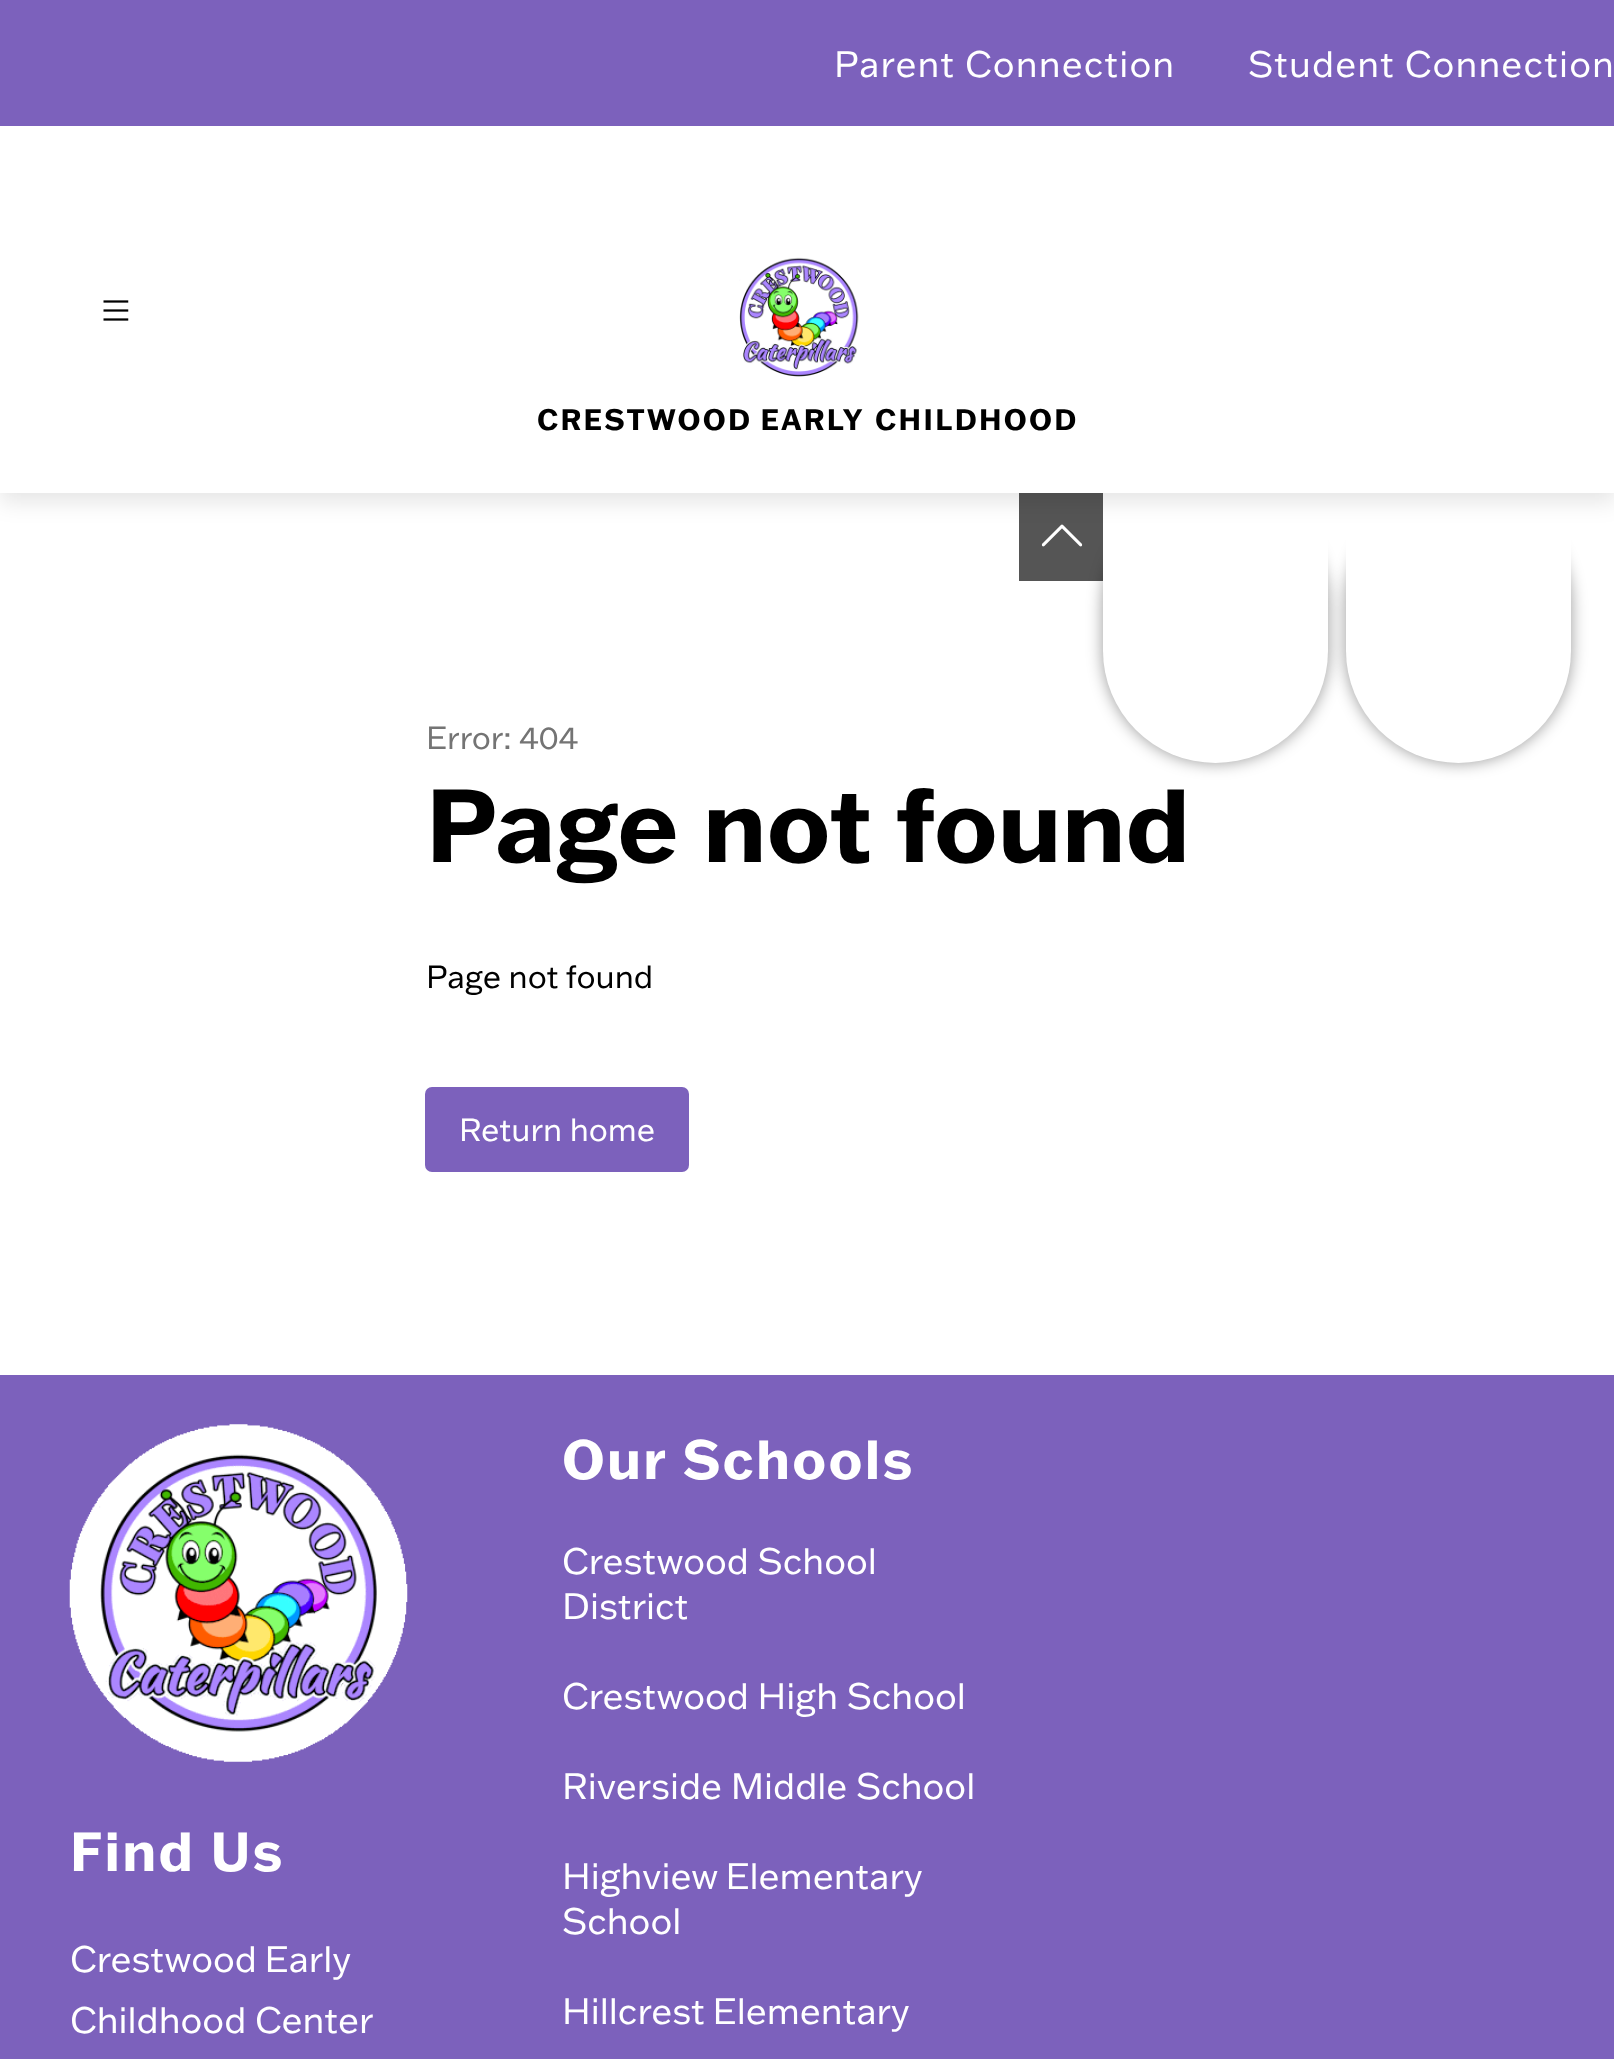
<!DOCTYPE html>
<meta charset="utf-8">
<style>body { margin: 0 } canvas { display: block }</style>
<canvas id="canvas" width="1614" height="2059"></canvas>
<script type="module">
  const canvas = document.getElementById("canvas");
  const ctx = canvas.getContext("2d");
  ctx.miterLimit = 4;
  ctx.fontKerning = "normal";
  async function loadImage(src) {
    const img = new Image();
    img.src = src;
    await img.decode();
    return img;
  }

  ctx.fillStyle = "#ffffff";
  ctx.fillRect(0, 0, 1614, 2059);
  ctx.fillStyle = "#555555";
  ctx.fillRect(1019, 493, 84, 88);
  ctx.fillStyle = "rgba(0, 0, 0, 0.4)";
  ctx.filter = "blur(8px)";
  ctx.beginPath();
  ctx.roundRect(1103, 493, 225, 270, 112.5);
  ctx.fill();
  ctx.filter = "none";
  ctx.drawImage(await loadImage("img3.png"), 1041, 524, 42, 23);
  ctx.fillStyle = "#ffffff";
  ctx.beginPath();
  ctx.roundRect(1103, 493, 225, 270, [0, 0, 112.5, 112.5]);
  ctx.fill();
  ctx.fillStyle = "rgba(0, 0, 0, 0.4)";
  ctx.filter = "blur(8px)";
  ctx.beginPath();
  ctx.roundRect(1346, 493, 225, 270, 112.5);
  ctx.fill();
  ctx.filter = "none";
  ctx.fillStyle = "#ffffff";
  ctx.beginPath();
  ctx.roundRect(1346, 493, 225, 270, [0, 0, 112.5, 112.5]);
  ctx.fill();
  ctx.fillStyle = "rgba(0, 0, 0, 0.1)";
  ctx.filter = "blur(11px)";
  ctx.beginPath();
  ctx.rect(0, 9, 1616, 493);
  ctx.fill();
  ctx.filter = "none";
  ctx.fillStyle = "#7c61bc";
  ctx.fillRect(0, 0, 1614, 126);
  ctx.letterSpacing = "1.1px";
  ctx.font = "36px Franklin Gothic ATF";
  ctx.fillStyle = "#ffffff";
  ctx.fillText("Parent Connection", 834, 77);
  ctx.fillText("Student Connection", 1248, 77);
  ctx.fillRect(0, 126, 1614, 367);
  ctx.drawImage(await loadImage("img1.png"), 103, 300, 26, 21);
  ctx.drawImage(await loadImage("img2.png"), 739, 257, 120, 120);
  ctx.letterSpacing = "2.25px";
  ctx.wordSpacing = "-1px";
  ctx.font = "bold 29px Franklin Gothic ATF";
  ctx.fillStyle = "#000000";
  ctx.fillText("CRESTWOOD EARLY", 537, 430);
  ctx.wordSpacing = "0px";
  ctx.fillText("CHILDHOOD", 875, 430);
  ctx.letterSpacing = "0px";
  ctx.font = "31.5px Franklin Gothic ATF";
  ctx.fillStyle = "#747474";
  ctx.fillText("Error: 404", 426, 749);
  ctx.font = "bold 101.25px Franklin Gothic ATF";
  ctx.fillStyle = "#000000";
  ctx.fillText("Page not found", 426, 862);
  ctx.font = "31.5px Franklin Gothic ATF";
  ctx.fillText("Page not found", 426, 988);
  ctx.fillStyle = "#7c61bc";
  ctx.beginPath();
  ctx.roundRect(425, 1087, 264, 85, 7);
  ctx.fill();
  ctx.fillStyle = "#ffffff";
  ctx.fillText("Return home", 459, 1141);
  ctx.fillStyle = "#7c61bc";
  ctx.fillRect(0, 1375, 1614, 684);
  ctx.drawImage(await loadImage("img4.png"), 69, 1424, 339, 338);
  ctx.letterSpacing = "2.25px";
  ctx.font = "bold 54px Franklin Gothic ATF";
  ctx.fillStyle = "#ffffff";
  ctx.fillText("Find Us", 70, 1871);
  ctx.letterSpacing = "0px";
  ctx.wordSpacing = "-1px";
  ctx.font = "36px Franklin Gothic ATF";
  ctx.fillText("Crestwood Early", 70, 1972);
  ctx.wordSpacing = "0px";
  ctx.fillText("Childhood Center", 70, 2033);
  ctx.letterSpacing = "2.25px";
  ctx.font = "bold 54px Franklin Gothic ATF";
  ctx.fillText("Our Schools", 562, 1479);
  ctx.letterSpacing = "0px";
  ctx.font = "36px Franklin Gothic ATF";
  ctx.fillText("Crestwood School", 562, 1574);
  ctx.fillText("District", 562, 1619);
  ctx.fillText("Crestwood High School", 562, 1709);
  ctx.fillText("Riverside Middle School", 562, 1799);
  ctx.wordSpacing = "-1px";
  ctx.fillText("Highview Elementary", 562, 1889);
  ctx.wordSpacing = "0px";
  ctx.fillText("School", 562, 1934);
  ctx.wordSpacing = "-1px";
  ctx.fillText("Hillcrest Elementary", 562, 2024);
</script>
